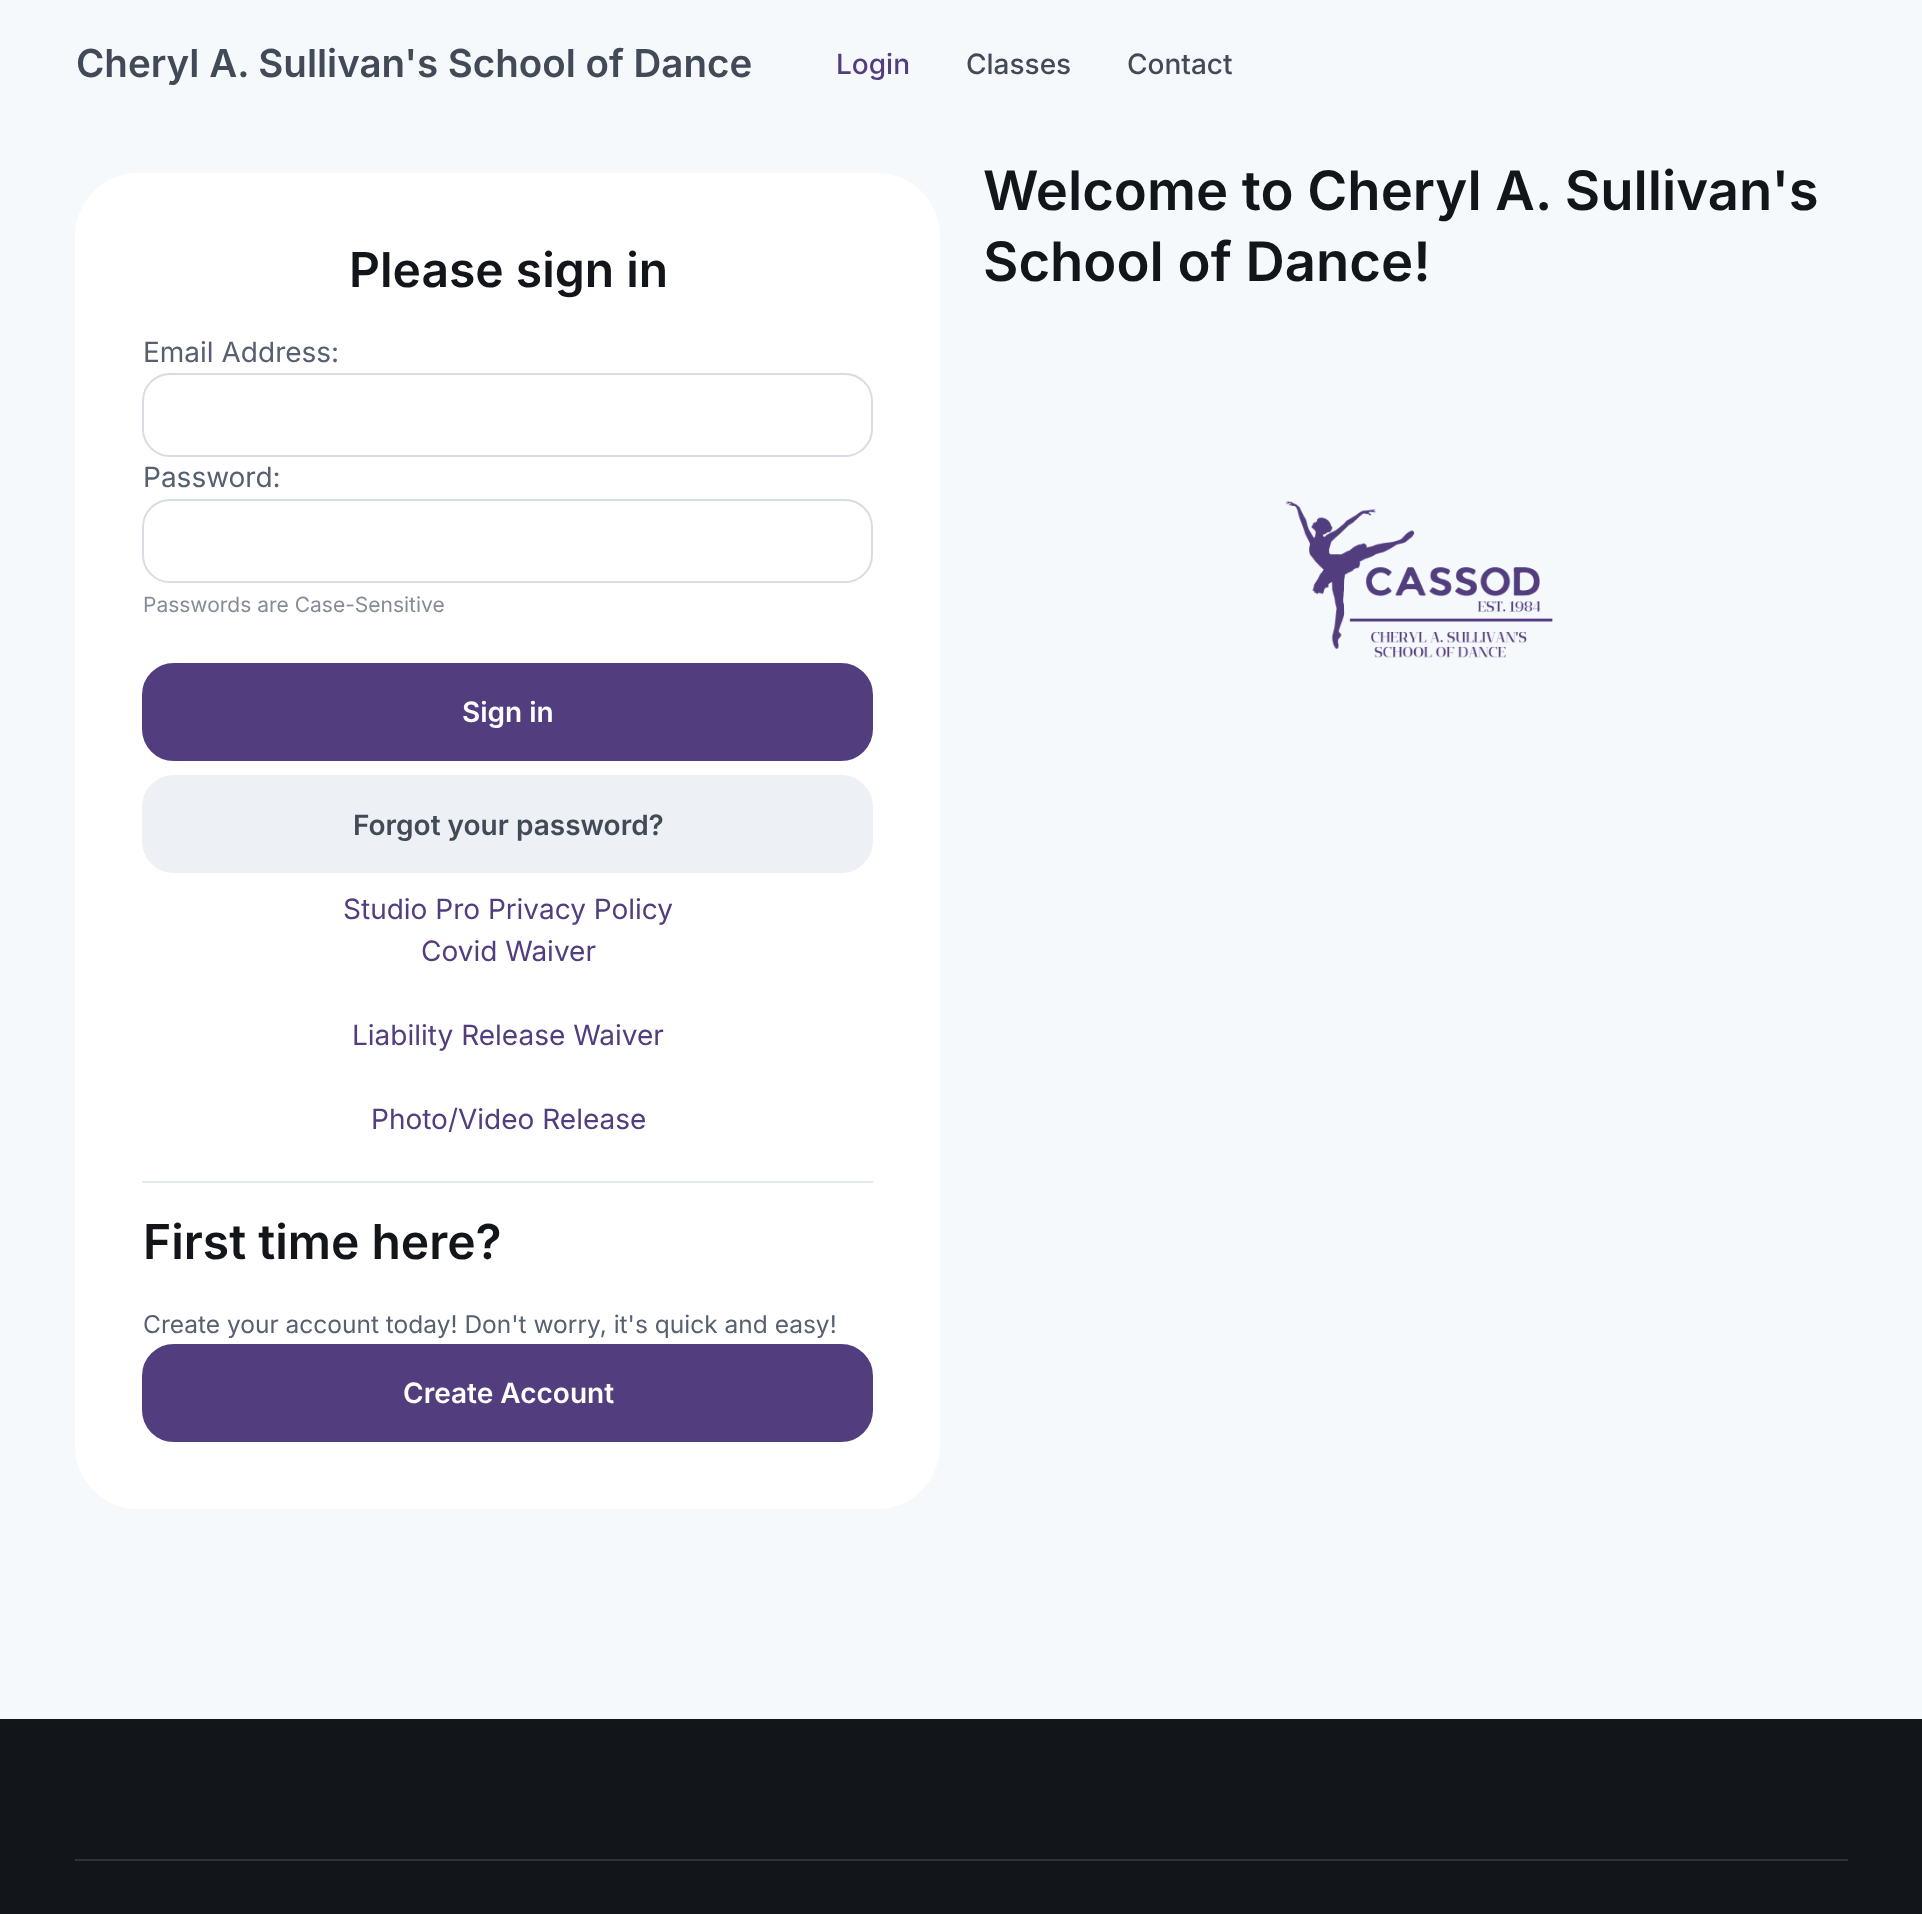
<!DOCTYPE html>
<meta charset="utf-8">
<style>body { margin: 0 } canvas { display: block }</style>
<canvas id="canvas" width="1922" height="1914"></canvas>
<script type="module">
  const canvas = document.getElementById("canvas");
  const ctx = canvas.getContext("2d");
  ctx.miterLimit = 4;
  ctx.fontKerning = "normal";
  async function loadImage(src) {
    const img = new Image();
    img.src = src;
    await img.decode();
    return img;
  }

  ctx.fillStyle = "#f6f9fc";
  ctx.fillRect(0, 0, 1922, 1914);
  ctx.font = "600 38.5px Inter";
  ctx.fillStyle = "#434a57";
  ctx.fillText("Cheryl A. Sullivan's School of Dance", 76, 77);
  ctx.font = "500 28px Inter";
  ctx.fillStyle = "#523d7e";
  ctx.fillText("Login", 836, 74);
  ctx.fillStyle = "#434a57";
  ctx.fillText("Classes", 966, 74);
  ctx.fillText("Contact", 1127, 74);
  ctx.font = "600 54.4px Inter";
  ctx.fillStyle = "#121519";
  ctx.fillText("Welcome to Cheryl A. Sullivan's", 983, 210);
  ctx.fillText("School of Dance!", 983, 281);
  ctx.drawImage(await loadImage("img1.png"), 1285, 500, 268, 158);
  ctx.fillStyle = "#ffffff";
  ctx.beginPath();
  ctx.roundRect(75, 173, 865, 1336, 63);
  ctx.fill();
  ctx.font = "600 48px Inter";
  ctx.fillStyle = "#121519";
  ctx.fillText("Please sign in", 349, 287);
  ctx.font = "28px Inter";
  ctx.fillStyle = "#576071";
  ctx.fillText("Email Address:", 143, 362);
  ctx.beginPath();
  ctx.roundRect(143, 374, 729, 82, 27);
  ctx.strokeStyle = "#d7dde2";
  ctx.lineWidth = 2;
  ctx.stroke();
  ctx.fillText("Password:", 143, 487);
  ctx.beginPath();
  ctx.roundRect(143, 500, 729, 82, 27);
  ctx.stroke();
  ctx.font = "21px Inter";
  ctx.fillStyle = "#858c97";
  ctx.fillText("Passwords are Case-Sensitive", 143, 612);
  ctx.fillStyle = "#523d7e";
  ctx.beginPath();
  ctx.roundRect(143, 664, 729, 96, 31);
  ctx.fill();
  ctx.strokeStyle = "#523d7e";
  ctx.stroke();
  ctx.font = "600 28px Inter";
  ctx.fillStyle = "#ffffff";
  ctx.fillText("Sign in", 462, 722);
  ctx.fillStyle = "#edf1f5";
  ctx.beginPath();
  ctx.roundRect(143, 776, 729, 96, 31);
  ctx.fill();
  ctx.strokeStyle = "#edf1f5";
  ctx.stroke();
  ctx.fillStyle = "#434a57";
  ctx.fillText("Forgot your password?", 353, 835);
  ctx.font = "28px Inter";
  ctx.fillStyle = "#523d7e";
  ctx.fillText("Studio Pro Privacy Policy", 343, 919);
  ctx.fillText("Covid Waiver", 421, 961);
  ctx.fillText("Liability Release Waiver", 352, 1045);
  ctx.fillText("Photo/Video Release", 371, 1129);
  ctx.fillStyle = "#e3e9ef";
  ctx.fillRect(142, 1181, 731, 2);
  ctx.font = "600 48px Inter";
  ctx.fillStyle = "#121519";
  ctx.fillText("First time here?", 143, 1259);
  ctx.font = "24.5px Inter";
  ctx.fillStyle = "#576071";
  ctx.fillText("Create your account today! Don't worry, it's quick and easy!", 143, 1333);
  ctx.fillStyle = "#523d7e";
  ctx.beginPath();
  ctx.roundRect(143, 1345, 729, 96, 31);
  ctx.fill();
  ctx.strokeStyle = "#523d7e";
  ctx.stroke();
  ctx.font = "600 28px Inter";
  ctx.fillStyle = "#ffffff";
  ctx.fillText("Create Account", 403, 1403);
  ctx.fillStyle = "#121519";
  ctx.fillRect(0, 1719, 1922, 195);
  ctx.fillStyle = "#313337";
  ctx.fillRect(75, 1859, 1773, 2);
</script>
